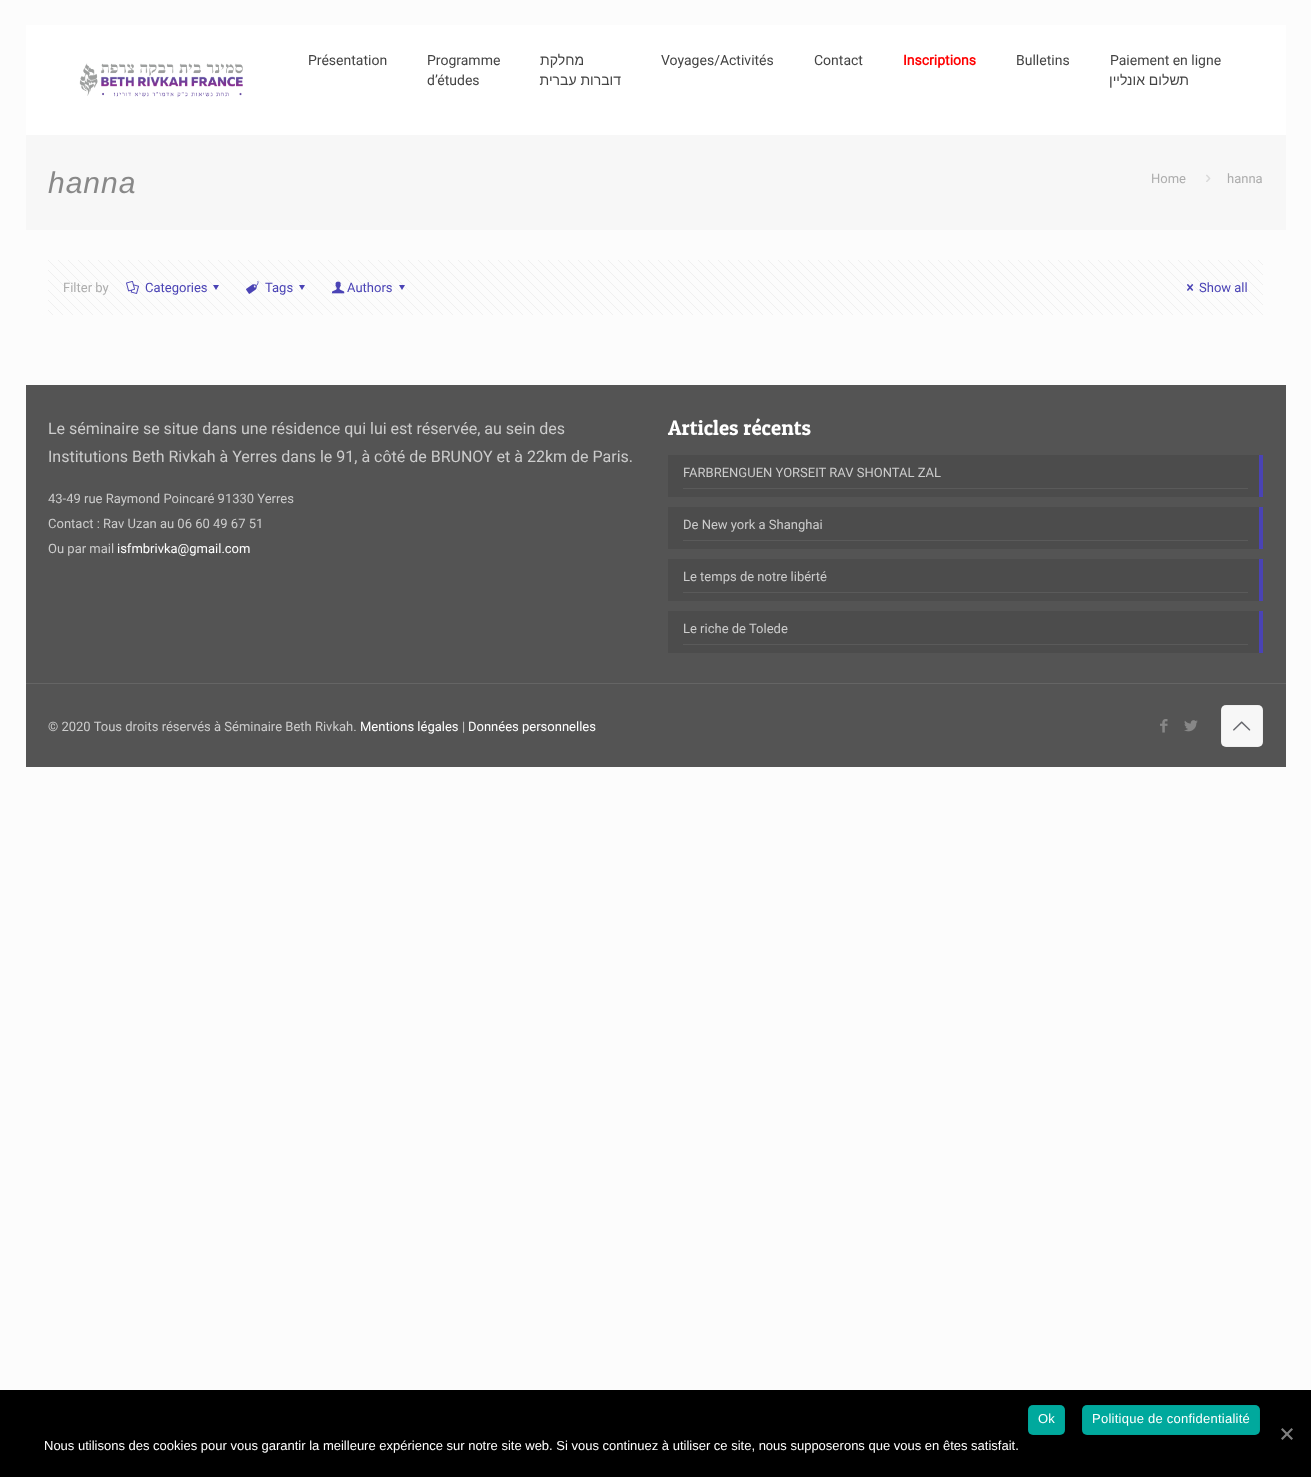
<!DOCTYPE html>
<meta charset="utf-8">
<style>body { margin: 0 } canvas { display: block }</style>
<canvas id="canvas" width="1311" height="1477"></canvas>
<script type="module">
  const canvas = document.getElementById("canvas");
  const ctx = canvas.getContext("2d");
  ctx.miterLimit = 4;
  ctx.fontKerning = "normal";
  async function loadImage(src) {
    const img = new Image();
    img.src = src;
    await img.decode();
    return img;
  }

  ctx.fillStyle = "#fcfcfc";
  ctx.fillRect(0, 0, 1311, 1477);
  ctx.fillStyle = "#ffffff";
  ctx.fillRect(26, 25, 1260, 110);
  ctx.drawImage(await loadImage("img1.png"), 79, 63, 164, 35);
  ctx.font = "14px Roboto";
  ctx.fillStyle = "#444444";
  ctx.fillText("Présentation", 308, 65);
  ctx.fillText("Programme", 427, 65);
  ctx.fillText("d’études", 427, 85);
  ctx.direction = "rtl";
  ctx.font = "14px Liberation Sans";
  ctx.fillText("מחלקת", 584, 65);
  ctx.fillText("דוברות עברית", 621, 85);
  ctx.direction = "ltr";
  ctx.font = "14px Roboto";
  ctx.fillText("Voyages/Activités", 661, 65);
  ctx.fillText("Contact", 814, 65);
  ctx.font = "bold 14px Roboto";
  ctx.fillStyle = "#ff0000";
  ctx.fillText("Inscriptions", 903, 65);
  ctx.font = "14px Roboto";
  ctx.fillStyle = "#444444";
  ctx.fillText("Bulletins", 1016, 65);
  ctx.fillText("Paiement en ligne", 1110, 65);
  ctx.direction = "rtl";
  ctx.font = "14px Liberation Sans";
  ctx.fillText("תשלום אונליין", 1189, 85);
  ctx.fillStyle = "#f7f7f7";
  ctx.fillRect(26, 135, 1260, 95);
  ctx.letterSpacing = "1px";
  ctx.direction = "ltr";
  ctx.font = "italic 30px Liberation Sans";
  ctx.fillStyle = "#888888";
  ctx.fillText("hanna", 48, 193);
  ctx.letterSpacing = "0px";
  ctx.font = "13px Roboto";
  ctx.fillStyle = "#adadad";
  ctx.fillText("Home", 1151, 183);
  ctx.drawImage(await loadImage("img2.png"), 1206, 174, 5, 8);
  ctx.fillText("hanna", 1227, 183);
  ctx.drawImage(await loadImage("img3.png"), 48, 260, 1215, 55);
  ctx.fillText("Filter by", 63, 292);
  ctx.drawImage(await loadImage("img4.png"), 126, 281, 13, 13);
  ctx.fillStyle = "#4a43b5";
  ctx.fillText("Categories", 145, 292);
  ctx.beginPath();
  ctx.moveTo(219, 285);
  ctx.lineTo(216, 290);
  ctx.lineTo(213, 285);
  ctx.closePath();
  ctx.fill();
  ctx.drawImage(await loadImage("img5.png"), 246, 281, 13, 13);
  ctx.fillText("Tags", 265, 292);
  ctx.beginPath();
  ctx.moveTo(305, 285);
  ctx.lineTo(302, 290);
  ctx.lineTo(299, 285);
  ctx.closePath();
  ctx.fill();
  ctx.drawImage(await loadImage("img6.png"), 332, 281, 13, 13);
  ctx.fillText("Authors", 347, 292);
  ctx.beginPath();
  ctx.moveTo(405, 285);
  ctx.lineTo(402, 290);
  ctx.lineTo(399, 285);
  ctx.closePath();
  ctx.fill();
  ctx.drawImage(await loadImage("img7.png"), 1187, 284, 7, 7);
  ctx.fillText("Show all", 1199, 292);
  ctx.fillStyle = "#545454";
  ctx.fillRect(26, 385, 1260, 382);
  ctx.font = "16px Roboto";
  ctx.fillStyle = "#cccccc";
  ctx.fillText("Le séminaire se situe dans une résidence qui lui est réservée, au sein des", 48, 434);
  ctx.fillText("Institutions Beth Rivkah à Yerres dans le 91, à côté de BRUNOY et à 22km de Paris.", 48, 462);
  ctx.font = "13px Roboto";
  ctx.fillText("43-49 rue Raymond Poincaré 91330 Yerres", 48, 503);
  ctx.fillText("Contact : Rav Uzan au 06 60 49 67 51", 48, 528);
  ctx.fillText("Ou par mail", 48, 553);
  ctx.fillStyle = "#ffffff";
  ctx.fillText("isfmbrivka@gmail.com", 117, 553);
  ctx.font = "21px Patua One";
  ctx.fillText("Articles récents", 668, 435);
  ctx.fillStyle = "#4c4c4c";
  ctx.fillRect(668, 455, 591, 42);
  ctx.fillStyle = "#5a5a5a";
  ctx.fillRect(683, 488, 565, 1);
  ctx.font = "13px Roboto";
  ctx.fillStyle = "#cccccc";
  ctx.fillText("FARBRENGUEN YORSEIT RAV SHONTAL ZAL", 683, 477);
  ctx.fillStyle = "#4a43b5";
  ctx.fillRect(1259, 455, 4, 42);
  ctx.fillStyle = "#4c4c4c";
  ctx.fillRect(668, 507, 591, 42);
  ctx.fillStyle = "#5a5a5a";
  ctx.fillRect(683, 540, 565, 1);
  ctx.fillStyle = "#cccccc";
  ctx.fillText("De New york a Shanghai", 683, 529);
  ctx.fillStyle = "#4a43b5";
  ctx.fillRect(1259, 507, 4, 42);
  ctx.fillStyle = "#4c4c4c";
  ctx.fillRect(668, 559, 591, 42);
  ctx.fillStyle = "#5a5a5a";
  ctx.fillRect(683, 592, 565, 1);
  ctx.fillStyle = "#cccccc";
  ctx.fillText("Le temps de notre libérté", 683, 581);
  ctx.fillStyle = "#4a43b5";
  ctx.fillRect(1259, 559, 4, 42);
  ctx.fillStyle = "#4c4c4c";
  ctx.fillRect(668, 611, 591, 42);
  ctx.fillStyle = "#5a5a5a";
  ctx.fillRect(683, 644, 565, 1);
  ctx.fillStyle = "#cccccc";
  ctx.fillText("Le riche de Tolede", 683, 633);
  ctx.fillStyle = "#4a43b5";
  ctx.fillRect(1259, 611, 4, 42);
  ctx.fillStyle = "#656565";
  ctx.fillRect(26, 683, 1260, 1);
  ctx.fillStyle = "#cccccc";
  ctx.fillText("© 2020 Tous droits réservés à Séminaire Beth Rivkah.", 48, 731);
  ctx.fillStyle = "#ffffff";
  ctx.fillText("Mentions légales", 360, 731);
  ctx.fillStyle = "#cccccc";
  ctx.fillText("|", 462, 731);
  ctx.fillStyle = "#ffffff";
  ctx.fillText("Données personnelles", 468, 731);
  ctx.drawImage(await loadImage("img8.png"), 1160, 719, 8, 14);
  ctx.drawImage(await loadImage("img9.png"), 1184, 720, 14, 12);
  ctx.fillStyle = "#f7f7f7";
  ctx.beginPath();
  ctx.roundRect(1221, 705, 42, 42, 5);
  ctx.fill();
  ctx.strokeStyle = "rgba(0, 0, 0, 0.03)";
  ctx.strokeRect(1221.5, 705.5, 41, 41);
  ctx.drawImage(await loadImage("img10.png"), 1233, 721, 18, 10);
  ctx.fillStyle = "#000000";
  ctx.fillRect(0, 1390, 1311, 87);
  ctx.fillStyle = "#00a99d";
  ctx.beginPath();
  ctx.roundRect(1028, 1405, 37, 30, 5);
  ctx.fill();
  ctx.strokeRect(1028.5, 1405.5, 36, 29);
  ctx.letterSpacing = "0.25px";
  ctx.font = "13px Liberation Sans";
  ctx.fillStyle = "#ffffff";
  ctx.fillText("Ok", 1038, 1423);
  ctx.fillStyle = "#00a99d";
  ctx.beginPath();
  ctx.roundRect(1082, 1405, 178, 30, 5);
  ctx.fill();
  ctx.strokeRect(1082.5, 1405.5, 177, 29);
  ctx.fillStyle = "#ffffff";
  ctx.fillText("Politique de confidentialité", 1092, 1423);
  ctx.fillStyle = "#808080";
  ctx.beginPath();
  ctx.moveTo(1291.5, 1428);
  ctx.lineTo(1293, 1429.5);
  ctx.lineTo(1282.5, 1440);
  ctx.lineTo(1281, 1438.5);
  ctx.closePath();
  ctx.fill();
  ctx.beginPath();
  ctx.moveTo(1281, 1429.5);
  ctx.lineTo(1282.5, 1428);
  ctx.lineTo(1293, 1438.5);
  ctx.lineTo(1291.5, 1440);
  ctx.closePath();
  ctx.fill();
  ctx.letterSpacing = "0px";
  ctx.fillStyle = "#ffffff";
  ctx.fillText("Nous utilisons des cookies pour vous garantir la meilleure expérience sur notre site web. Si vous continuez à utiliser ce site, nous supposerons que vous en êtes satisfait.", 44, 1450);
</script>
